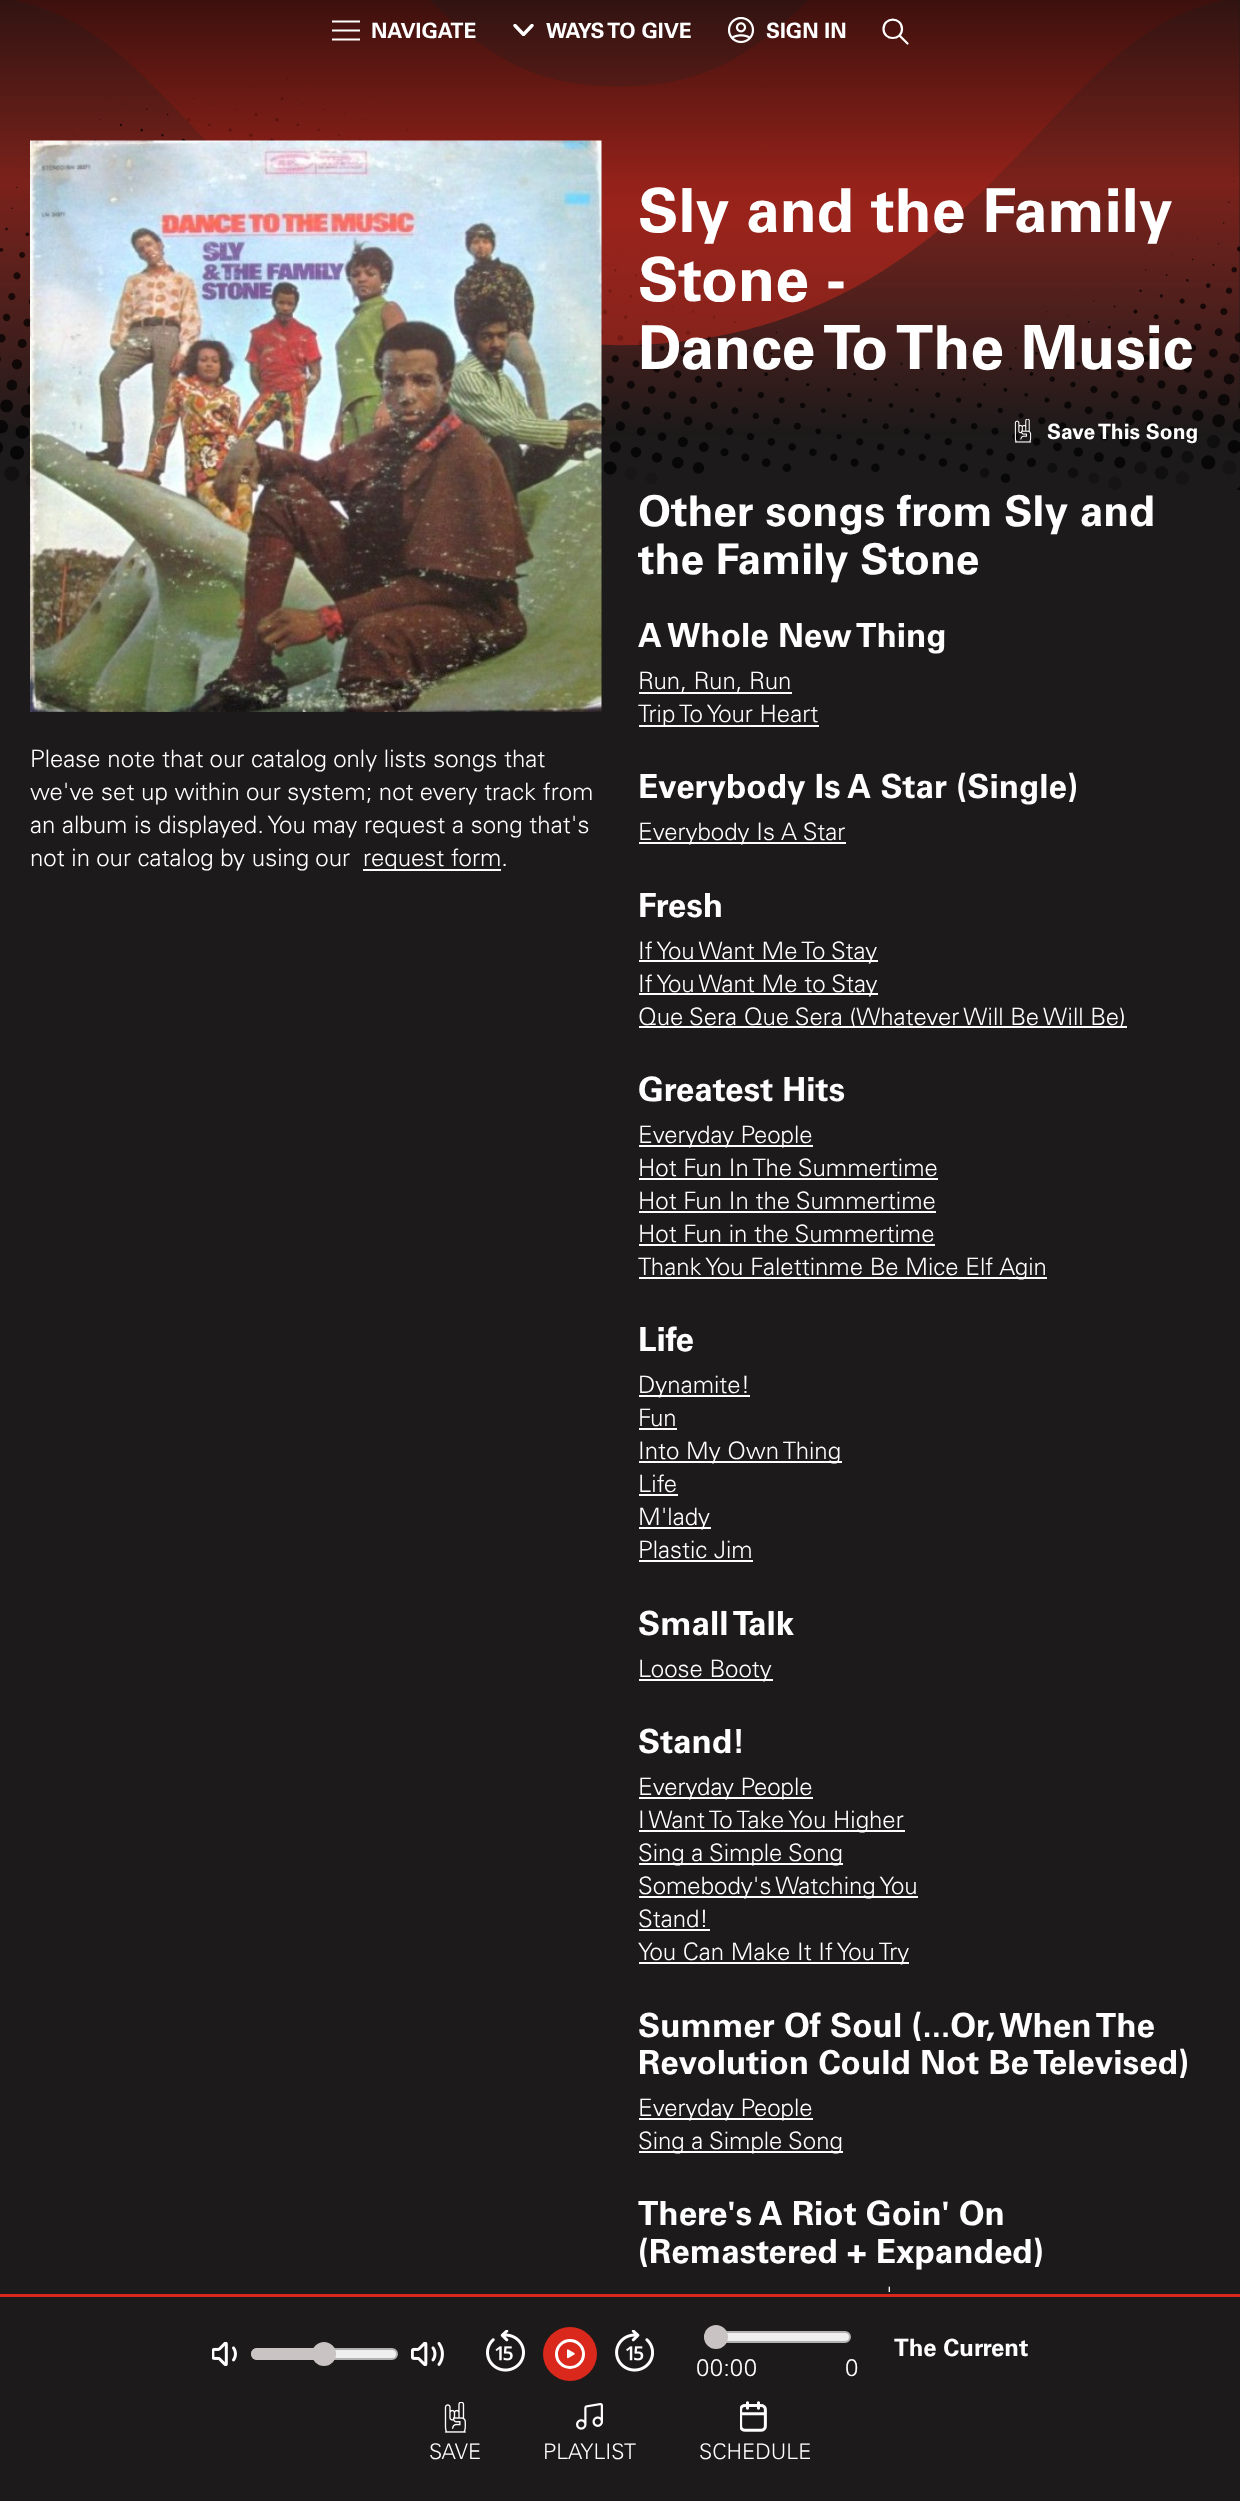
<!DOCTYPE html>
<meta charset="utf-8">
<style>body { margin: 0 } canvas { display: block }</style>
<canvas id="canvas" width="1240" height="2501"></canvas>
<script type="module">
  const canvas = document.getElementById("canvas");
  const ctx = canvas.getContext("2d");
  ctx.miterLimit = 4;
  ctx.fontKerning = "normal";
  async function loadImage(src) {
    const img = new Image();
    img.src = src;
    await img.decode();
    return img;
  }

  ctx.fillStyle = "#1c1a1a";
  ctx.fillRect(0, 0, 1240, 2501);
  ctx.drawImage(await loadImage("img1.png"), 0, 0, 1240, 490);
  ctx.save();
  ctx.beginPath();
  ctx.rect(332, 20, 28, 21);
  ctx.clip();
  ctx.beginPath();
  ctx.moveTo(331.5, 21.5);
  ctx.lineTo(360, 21.5);
  ctx.moveTo(331.5, 30.5);
  ctx.lineTo(360, 30.5);
  ctx.moveTo(331.5, 39.5);
  ctx.lineTo(360, 39.5);
  ctx.strokeStyle = "#ffffff";
  ctx.lineWidth = 2.2;
  ctx.stroke();
  ctx.restore();
  ctx.font = "bold 21px Univers";
  ctx.fillStyle = "#ffffff";
  ctx.fillText("NAVIGATE", 371, 38);
  ctx.save();
  ctx.beginPath();
  ctx.rect(513, 24, 21, 12);
  ctx.clip();
  ctx.beginPath();
  ctx.moveTo(515, 25.5);
  ctx.lineTo(523.5, 34.5);
  ctx.lineTo(532, 25.5);
  ctx.strokeStyle = "#ffffff";
  ctx.lineWidth = 3.4;
  ctx.lineCap = "round";
  ctx.lineJoin = "round";
  ctx.stroke();
  ctx.restore();
  ctx.fillText("WAYS TO GIVE", 546, 38);
  ctx.drawImage(await loadImage("img2.png"), 728, 17, 27, 27);
  ctx.fillText("SIGN IN", 766, 38);
  ctx.beginPath();
  ctx.moveTo(907.5, 43.5);
  ctx.lineTo(899.5, 35.5);
  ctx.moveTo(902, 29);
  ctx.bezierCurveTo(902, 41, 883.5, 41, 883.5, 29);
  ctx.bezierCurveTo(883.5, 16.5, 902, 16.5, 902, 29);
  ctx.closePath();
  ctx.strokeStyle = "#ffffff";
  ctx.lineWidth = 2.2;
  ctx.lineCap = "round";
  ctx.lineJoin = "round";
  ctx.stroke();
  ctx.drawImage(await loadImage("img3.png"), 30, 140, 572, 572);
  ctx.font = "300 24px Univers";
  ctx.fillText("Please note that our catalog only lists songs that", 30, 767);
  ctx.fillText("we've set up within our system; not every track from", 30, 800);
  ctx.fillText("an album is displayed. You may request a song that's", 30, 833);
  ctx.fillText("not in our catalog by using our", 30, 866);
  ctx.fillRect(363, 869, 138, 2);
  ctx.fillText("request form.", 363, 866);
  ctx.font = "bold 60.75px Univers";
  ctx.fillText("Sly and the Family", 638, 232);
  ctx.fillText("Stone -", 638, 301);
  ctx.fillText("Dance To The Music", 638, 369);
  ctx.drawImage(await loadImage("img4.png"), 1014, 419, 18, 24);
  ctx.font = "bold 21px Univers";
  ctx.fillText("Save", 1047, 439);
  ctx.fillText("This Song", 1098, 439);
  ctx.font = "bold 42.4px Univers";
  ctx.fillText("Other songs from Sly and", 638, 526);
  ctx.fillText("the Family Stone", 638, 574);
  ctx.font = "bold 33.25px Univers";
  ctx.fillText("A Whole New Thing", 638, 647);
  ctx.font = "300 24px Univers";
  ctx.fillText("Run, Run, Run", 638, 689);
  ctx.fillRect(639, 692, 153, 2);
  ctx.fillRect(639, 725, 180, 2);
  ctx.fillText("Trip To Your Heart", 638, 722);
  ctx.font = "bold 33.25px Univers";
  ctx.fillText("Everybody Is A Star (Single)", 638, 798);
  ctx.fillRect(639, 842, 207, 2);
  ctx.font = "300 24px Univers";
  ctx.fillText("Everybody Is A Star", 638, 840);
  ctx.font = "bold 33.25px Univers";
  ctx.fillText("Fresh", 638, 917);
  ctx.fillRect(639, 960, 239, 2);
  ctx.font = "300 24px Univers";
  ctx.fillText("If You Want Me To Stay", 638, 959);
  ctx.fillRect(639, 993, 239, 2);
  ctx.fillText("If You Want Me to Stay", 638, 992);
  ctx.fillRect(639, 1026, 488, 2);
  ctx.fillText("Que Sera Que Sera (Whatever Will Be Will Be)", 638, 1025);
  ctx.font = "bold 33.25px Univers";
  ctx.fillText("Greatest Hits", 638, 1101);
  ctx.fillRect(639, 1145, 174, 2);
  ctx.font = "300 24px Univers";
  ctx.fillText("Everyday People", 638, 1143);
  ctx.fillText("Hot Fun In The Summertime", 638, 1176);
  ctx.fillRect(639, 1178, 299, 2);
  ctx.fillText("Hot Fun In the Summertime", 638, 1209);
  ctx.fillRect(639, 1211, 297, 2);
  ctx.fillText("Hot Fun in the Summertime", 638, 1242);
  ctx.fillRect(639, 1244, 296, 2);
  ctx.fillRect(639, 1277, 408, 2);
  ctx.fillText("Thank You Falettinme Be Mice Elf Agin", 638, 1275);
  ctx.font = "bold 33.25px Univers";
  ctx.fillText("Life", 638, 1351);
  ctx.fillRect(639, 1395, 111, 2);
  ctx.font = "300 24px Univers";
  ctx.fillText("Dynamite!", 638, 1393);
  ctx.fillText("Fun", 638, 1426);
  ctx.fillRect(639, 1428, 38, 2);
  ctx.fillRect(639, 1461, 203, 2);
  ctx.fillText("Into My Own Thing", 638, 1459);
  ctx.fillText("Life", 638, 1492);
  ctx.fillRect(639, 1494, 39, 2);
  ctx.fillRect(639, 1527, 72, 2);
  ctx.fillText("M'lady", 638, 1525);
  ctx.fillText("Plastic Jim", 638, 1558);
  ctx.fillRect(639, 1560, 114, 2);
  ctx.font = "bold 33.25px Univers";
  ctx.fillText("Small Talk", 638, 1635);
  ctx.fillRect(639, 1679, 134, 2);
  ctx.font = "300 24px Univers";
  ctx.fillText("Loose Booty", 638, 1677);
  ctx.font = "bold 33.25px Univers";
  ctx.fillText("Stand!", 638, 1753);
  ctx.fillRect(639, 1797, 174, 2);
  ctx.font = "300 24px Univers";
  ctx.fillText("Everyday People", 638, 1795);
  ctx.fillRect(639, 1830, 266, 2);
  ctx.fillText("I Want To Take You Higher", 638, 1828);
  ctx.fillRect(639, 1863, 204, 2);
  ctx.fillText("Sing a Simple Song", 638, 1861);
  ctx.fillRect(639, 1896, 279, 2);
  ctx.fillText("Somebody's Watching You", 638, 1894);
  ctx.fillText("Stand!", 638, 1927);
  ctx.fillRect(639, 1929, 71, 2);
  ctx.fillRect(639, 1962, 270, 2);
  ctx.fillText("You Can Make It If You Try", 638, 1960);
  ctx.font = "bold 33.25px Univers";
  ctx.fillText("Summer Of Soul (...Or, When The", 638, 2037);
  ctx.fillText("Revolution Could Not Be Televised)", 638, 2074);
  ctx.fillRect(639, 2118, 174, 2);
  ctx.font = "300 24px Univers";
  ctx.fillText("Everyday People", 638, 2116);
  ctx.fillRect(639, 2151, 204, 2);
  ctx.fillText("Sing a Simple Song", 638, 2149);
  ctx.font = "bold 33.25px Univers";
  ctx.fillText("There's A Riot Goin' On", 638, 2225);
  ctx.fillText("(Remastered + Expanded)", 638, 2263);
  ctx.font = "300 24px Univers";
  ctx.fillText("'", 886, 2304);
  ctx.fillStyle = "#da291c";
  ctx.fillRect(0, 2294, 1240, 3);
  ctx.drawImage(await loadImage("img5.png"), 212, 2342, 25, 24);
  ctx.fillStyle = "#efefef";
  ctx.beginPath();
  ctx.roundRect(252, 2349, 145, 10, 5);
  ctx.fill();
  ctx.strokeStyle = "#b2b2b2";
  ctx.lineWidth = 2;
  ctx.lineJoin = "miter";
  ctx.stroke();
  ctx.fillStyle = "#c9c3c3";
  ctx.beginPath();
  ctx.roundRect(251, 2348, 73, 12, [6, 0, 0, 6]);
  ctx.fill();
  ctx.beginPath();
  ctx.arc(324, 2354, 12, 0, Math.PI * 2);
  ctx.fill();
  ctx.drawImage(await loadImage("img6.png"), 411, 2342, 33, 24);
  ctx.drawImage(await loadImage("img7.png"), 486, 2330, 39, 42);
  ctx.fillStyle = "#da291c";
  ctx.beginPath();
  ctx.arc(570, 2354, 27, 0, Math.PI * 2);
  ctx.fill();
  ctx.drawImage(await loadImage("img8.png"), 567, 2349, 8, 10);
  ctx.beginPath();
  ctx.arc(570, 2354, 13.5, 0, Math.PI * 2);
  ctx.strokeStyle = "#ffffff";
  ctx.lineWidth = 3;
  ctx.stroke();
  ctx.drawImage(await loadImage("img9.png"), 615, 2330, 39, 42);
  ctx.font = "bold 24px Univers";
  ctx.fillStyle = "#ffffff";
  ctx.fillText("The Current", 894, 2356);
  ctx.fillStyle = "#efefef";
  ctx.beginPath();
  ctx.roundRect(705, 2332, 145, 10, 5);
  ctx.fill();
  ctx.strokeStyle = "#b2b2b2";
  ctx.lineWidth = 2;
  ctx.stroke();
  ctx.fillStyle = "#c9c3c3";
  ctx.beginPath();
  ctx.arc(716, 2337, 12, 0, Math.PI * 2);
  ctx.fill();
  ctx.font = "300 24px Univers";
  ctx.fillStyle = "#ffffff";
  ctx.fillText("00:00", 696, 2376);
  ctx.fillText("0", 845, 2376);
  ctx.drawImage(await loadImage("img10.png"), 444, 2402, 22, 31);
  ctx.font = "300 21.5px Univers";
  ctx.fillText("SAVE", 429, 2459);
  ctx.drawImage(await loadImage("img11.png"), 576, 2403, 27, 27);
  ctx.fillText("PLAYLIST", 543, 2459);
  ctx.drawImage(await loadImage("img12.png"), 740, 2401, 27, 31);
  ctx.fillText("SCHEDULE", 699, 2459);
</script>
